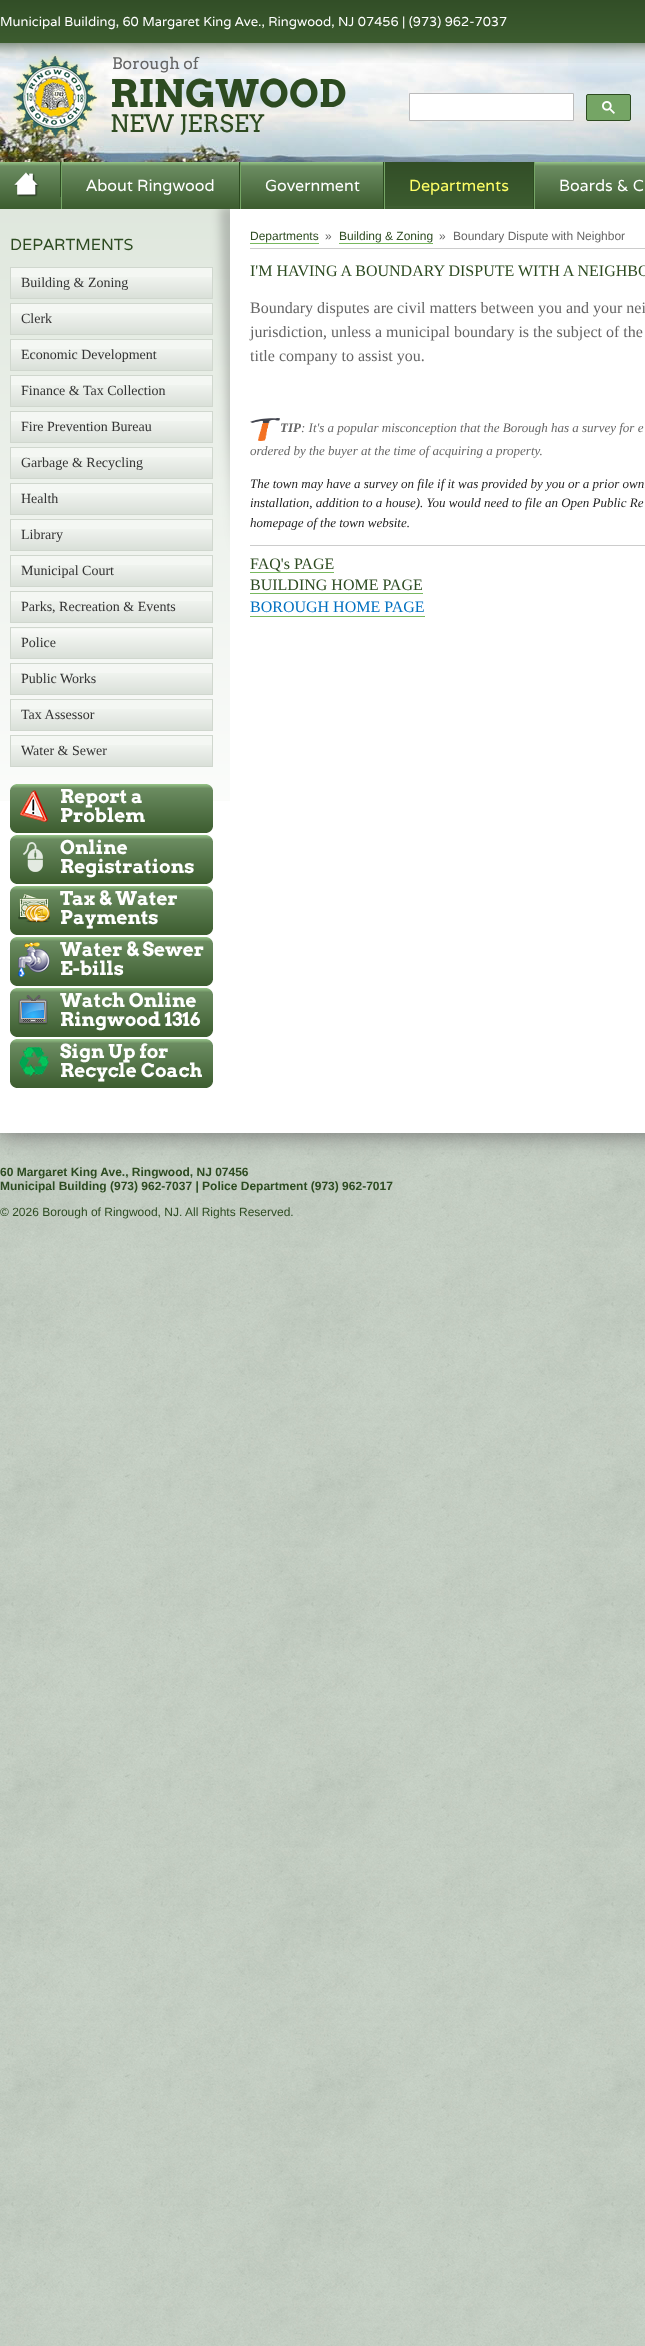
<!DOCTYPE html>
<meta charset="utf-8">
<style>body { margin: 0 } canvas { display: block }</style>
<canvas id="canvas" width="645" height="2346"></canvas>
<script type="module">
  const canvas = document.getElementById("canvas");
  const ctx = canvas.getContext("2d");
  ctx.miterLimit = 4;
  ctx.fontKerning = "normal";
  async function loadImage(src) {
    const img = new Image();
    img.src = src;
    await img.decode();
    return img;
  }

  ctx.fillStyle = "#ffffff";
  ctx.fillRect(0, 0, 645, 2346);
  ctx.drawImage(await loadImage("img1.png"), 0, 1133, 645, 1213);
  ctx.fillStyle = "#666666";
  ctx.filter = "blur(12.5px)";
  ctx.beginPath();
  ctx.rect(0, 42, 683, 1091);
  ctx.fill();
  ctx.filter = "none";
  ctx.drawImage(await loadImage("img3.png"), 0, 43, 645, 119);
  ctx.drawImage(await loadImage("img4.png"), 10, 53, 90, 88);
  ctx.font = "16px Arvo";
  ctx.fillText("Borough of", 112, 69);
  ctx.drawImage(await loadImage("img2.png"), 0, 0, 645, 63);
  ctx.font = "13px Varela";
  ctx.fillStyle = "#ffffff";
  ctx.fillText("Municipal Building, 60 Margaret King Ave., Ringwood, NJ 07456 | (973) 962-7037", 0, 26);
  ctx.font = "bold 38px Arvo";
  ctx.fillStyle = "#2d4b21";
  ctx.fillText("RINGWOOD", 110, 107);
  ctx.font = "24px Arvo";
  ctx.fillText("NEW JERSEY", 110, 132);
  ctx.fillStyle = "#ffffff";
  ctx.beginPath();
  ctx.rect(409.5, 93.5, 164, 27);
  ctx.fill();
  ctx.strokeStyle = "#bbbbbb";
  ctx.stroke();
  ctx.fillStyle = "#75a565";
  ctx.beginPath();
  ctx.roundRect(586.5, 94.5, 44, 26, 1.5);
  ctx.fill();
  ctx.strokeStyle = "#2d4b21";
  ctx.stroke();
  ctx.drawImage(await loadImage("img5.png"), 602, 101, 13, 13);
  ctx.drawImage(await loadImage("img6.png"), 0, 162, 645, 47);
  ctx.fillStyle = "#2d4b21";
  ctx.fillRect(60, 162, 1, 35);
  ctx.drawImage(await loadImage("img7.png"), 14, 172, 25, 25);
  ctx.fillRect(239, 162, 1, 47);
  ctx.fillStyle = "#75a565";
  ctx.fillRect(61, 162, 1, 47);
  ctx.font = "16px Varela";
  ctx.fillStyle = "#ffffff";
  ctx.fillText("About Ringwood", 86, 191);
  ctx.fillStyle = "#2d4b21";
  ctx.fillRect(383, 162, 1, 47);
  ctx.fillStyle = "#75a565";
  ctx.fillRect(240, 162, 1, 47);
  ctx.fillStyle = "#ffffff";
  ctx.fillText("Government", 265, 191);
  ctx.fillStyle = "#2d4b21";
  ctx.fillRect(533, 162, 1, 47);
  ctx.fillStyle = "#75a565";
  ctx.fillRect(384, 162, 1, 47);
  ctx.drawImage(await loadImage("img8.png"), 385, 162, 148, 44);
  ctx.fillStyle = "#ffff66";
  ctx.fillText("Departments", 409, 191);
  ctx.fillStyle = "#75a565";
  ctx.fillRect(534, 162, 1, 47);
  ctx.fillStyle = "#ffffff";
  ctx.fillText("Boards & C", 559, 191);
  ctx.fillRect(0, 209, 645, 924);
  ctx.drawImage(await loadImage("img9.png"), 0, 209, 230, 592);
  ctx.fillStyle = "#2d4b21";
  ctx.fillText("DEPARTMENTS", 10, 250);
  ctx.fillStyle = "#f4f7f3";
  ctx.fillRect(11, 268, 201, 9);
  ctx.drawImage(await loadImage("img10.png"), 11, 277, 201, 21);
  ctx.strokeStyle = "#d0d7ce";
  ctx.strokeRect(10.5, 267.5, 202, 31);
  ctx.font = "14px Liberation Serif";
  ctx.fillStyle = "#333333";
  ctx.fillText("Building & Zoning", 21, 287);
  ctx.fillStyle = "#f4f7f3";
  ctx.fillRect(11, 304, 201, 9);
  ctx.drawImage(await loadImage("img10.png"), 11, 313, 201, 21);
  ctx.strokeRect(10.5, 303.5, 202, 31);
  ctx.fillStyle = "#333333";
  ctx.fillText("Clerk", 21, 323);
  ctx.fillStyle = "#f4f7f3";
  ctx.fillRect(11, 340, 201, 9);
  ctx.drawImage(await loadImage("img10.png"), 11, 349, 201, 21);
  ctx.strokeRect(10.5, 339.5, 202, 31);
  ctx.fillStyle = "#333333";
  ctx.fillText("Economic Development", 21, 359);
  ctx.fillStyle = "#f4f7f3";
  ctx.fillRect(11, 376, 201, 9);
  ctx.drawImage(await loadImage("img10.png"), 11, 385, 201, 21);
  ctx.strokeRect(10.5, 375.5, 202, 31);
  ctx.fillStyle = "#333333";
  ctx.fillText("Finance & Tax Collection", 21, 395);
  ctx.fillStyle = "#f4f7f3";
  ctx.fillRect(11, 412, 201, 9);
  ctx.drawImage(await loadImage("img10.png"), 11, 421, 201, 21);
  ctx.strokeRect(10.5, 411.5, 202, 31);
  ctx.fillStyle = "#333333";
  ctx.fillText("Fire Prevention Bureau", 21, 431);
  ctx.fillStyle = "#f4f7f3";
  ctx.fillRect(11, 448, 201, 9);
  ctx.drawImage(await loadImage("img10.png"), 11, 457, 201, 21);
  ctx.strokeRect(10.5, 447.5, 202, 31);
  ctx.fillStyle = "#333333";
  ctx.fillText("Garbage & Recycling", 21, 467);
  ctx.fillStyle = "#f4f7f3";
  ctx.fillRect(11, 484, 201, 9);
  ctx.drawImage(await loadImage("img10.png"), 11, 493, 201, 21);
  ctx.strokeRect(10.5, 483.5, 202, 31);
  ctx.fillStyle = "#333333";
  ctx.fillText("Health", 21, 503);
  ctx.fillStyle = "#f4f7f3";
  ctx.fillRect(11, 520, 201, 9);
  ctx.drawImage(await loadImage("img10.png"), 11, 529, 201, 21);
  ctx.strokeRect(10.5, 519.5, 202, 31);
  ctx.fillStyle = "#333333";
  ctx.fillText("Library", 21, 539);
  ctx.fillStyle = "#f4f7f3";
  ctx.fillRect(11, 556, 201, 9);
  ctx.drawImage(await loadImage("img10.png"), 11, 565, 201, 21);
  ctx.strokeRect(10.5, 555.5, 202, 31);
  ctx.fillStyle = "#333333";
  ctx.fillText("Municipal Court", 21, 575);
  ctx.fillStyle = "#f4f7f3";
  ctx.fillRect(11, 592, 201, 9);
  ctx.drawImage(await loadImage("img10.png"), 11, 601, 201, 21);
  ctx.strokeRect(10.5, 591.5, 202, 31);
  ctx.fillStyle = "#333333";
  ctx.fillText("Parks, Recreation & Events", 21, 611);
  ctx.drawImage(await loadImage("img11.png"), 11, 629, 201, 29);
  ctx.strokeRect(10.5, 627.5, 202, 31);
  ctx.fillText("Police", 21, 647);
  ctx.drawImage(await loadImage("img10.png"), 11, 673, 201, 21);
  ctx.strokeRect(10.5, 663.5, 202, 31);
  ctx.fillText("Public Works", 21, 683);
  ctx.fillStyle = "#f4f7f3";
  ctx.fillRect(11, 700, 201, 9);
  ctx.drawImage(await loadImage("img10.png"), 11, 709, 201, 21);
  ctx.strokeRect(10.5, 699.5, 202, 31);
  ctx.fillStyle = "#333333";
  ctx.fillText("Tax Assessor", 21, 719);
  ctx.fillStyle = "#f4f7f3";
  ctx.fillRect(11, 736, 201, 9);
  ctx.drawImage(await loadImage("img10.png"), 11, 745, 201, 21);
  ctx.strokeRect(10.5, 735.5, 202, 31);
  ctx.fillStyle = "#333333";
  ctx.fillText("Water & Sewer", 21, 755);
  ctx.drawImage(await loadImage("img12.png"), 10, 784, 203, 49);
  ctx.drawImage(await loadImage("img13.png"), 20, 790, 28, 32);
  ctx.font = "bold 19px Arvo";
  ctx.fillStyle = "#ffffff";
  ctx.fillText("Report a", 60, 803);
  ctx.fillText("Problem", 60, 822);
  ctx.drawImage(await loadImage("img14.png"), 10, 835, 203, 49);
  ctx.drawImage(await loadImage("img15.png"), 23, 842, 20, 30);
  ctx.fillText("Online", 60, 854);
  ctx.fillText("Registrations", 60, 873);
  ctx.drawImage(await loadImage("img14.png"), 10, 886, 203, 49);
  ctx.drawImage(await loadImage("img16.png"), 18, 893, 32, 30);
  ctx.fillText("Tax & Water", 60, 905);
  ctx.fillText("Payments", 60, 924);
  ctx.drawImage(await loadImage("img14.png"), 10, 937, 203, 49);
  ctx.drawImage(await loadImage("img17.png"), 18, 942, 32, 35);
  ctx.fillText("Water & Sewer", 60, 956);
  ctx.fillText("E-bills", 60, 975);
  ctx.drawImage(await loadImage("img14.png"), 10, 988, 203, 49);
  ctx.drawImage(await loadImage("img18.png"), 18, 995, 30, 30);
  ctx.fillText("Watch Online", 60, 1007);
  ctx.fillText("Ringwood 1316", 60, 1026);
  ctx.drawImage(await loadImage("img14.png"), 10, 1039, 203, 49);
  ctx.drawImage(await loadImage("img19.png"), 19, 1047, 30, 30);
  ctx.fillText("Sign Up for", 60, 1058);
  ctx.fillText("Recycle Coach", 60, 1077);
  ctx.fillStyle = "#cccccc";
  ctx.fillRect(250, 248, 395, 1);
  ctx.font = "12px Liberation Sans";
  ctx.fillStyle = "#2d4b21";
  ctx.fillText("Departments", 250, 240);
  ctx.fillStyle = "#78b85e";
  ctx.fillRect(250, 243, 69, 1);
  ctx.fillStyle = "#666666";
  ctx.fillText("»", 325, 240);
  ctx.fillStyle = "#2d4b21";
  ctx.fillText("Building & Zoning", 339, 240);
  ctx.fillStyle = "#78b85e";
  ctx.fillRect(339, 243, 94, 1);
  ctx.fillStyle = "#666666";
  ctx.fillText("»", 439, 240);
  ctx.fillText("Boundary Dispute with Neighbor", 453, 240);
  ctx.font = "16px Liberation Serif";
  ctx.fillStyle = "#2d4b21";
  ctx.fillText("I'M HAVING A BOUNDARY DISPUTE WITH A NEIGHBO", 250, 276);
  ctx.fillStyle = "#666666";
  ctx.fillText("Boundary disputes are civil matters between you and your nei", 250, 313);
  ctx.fillText("jurisdiction, unless a municipal boundary is the subject of the", 250, 337);
  ctx.fillText("title company to assist you.", 250, 361);
  ctx.drawImage(await loadImage("img20.png"), 250, 418, 30, 23);
  ctx.font = "italic bold 13px Liberation Serif";
  ctx.fillText("TIP", 280, 432);
  ctx.font = "italic 13px Liberation Serif";
  ctx.fillText(": It's a popular misconception that the Borough has a survey for e", 301, 432);
  ctx.fillText("ordered by the buyer at the time of acquiring a property.", 250, 455);
  ctx.fillStyle = "#222222";
  ctx.fillText("The town may have a survey on file if it was provided by you or a prior own", 250, 488);
  ctx.fillText("installation, addition to a house). You would need to file an Open Public Re", 250, 507);
  ctx.fillText("homepage of the town website.", 250, 527);
  ctx.fillStyle = "#cccccc";
  ctx.fillRect(250, 545, 395, 1);
  ctx.font = "16px Liberation Serif";
  ctx.fillStyle = "#2d4b21";
  ctx.fillText("FAQ's PAGE", 250, 569);
  ctx.fillStyle = "#78b85e";
  ctx.fillRect(250, 572, 84, 1);
  ctx.fillStyle = "#2d4b21";
  ctx.fillText("BUILDING HOME PAGE", 250, 590);
  ctx.fillStyle = "#78b85e";
  ctx.fillRect(250, 593, 173, 1);
  ctx.fillStyle = "#0070c0";
  ctx.fillText("BOROUGH HOME PAGE", 250, 612);
  ctx.fillStyle = "#78b85e";
  ctx.fillRect(250, 616, 175, 1);
  ctx.font = "bold 12px Liberation Sans";
  ctx.fillStyle = "#2d4b21";
  ctx.fillText("60 Margaret King Ave., Ringwood, NJ 07456", 0, 1176);
  ctx.fillText("Municipal Building (973) 962-7037 | Police Department (973) 962-7017", 0, 1190);
  ctx.font = "12px Liberation Sans";
  ctx.fillText("© 2026 Borough of Ringwood, NJ. All Rights Reserved.", 0, 1216);
</script>
